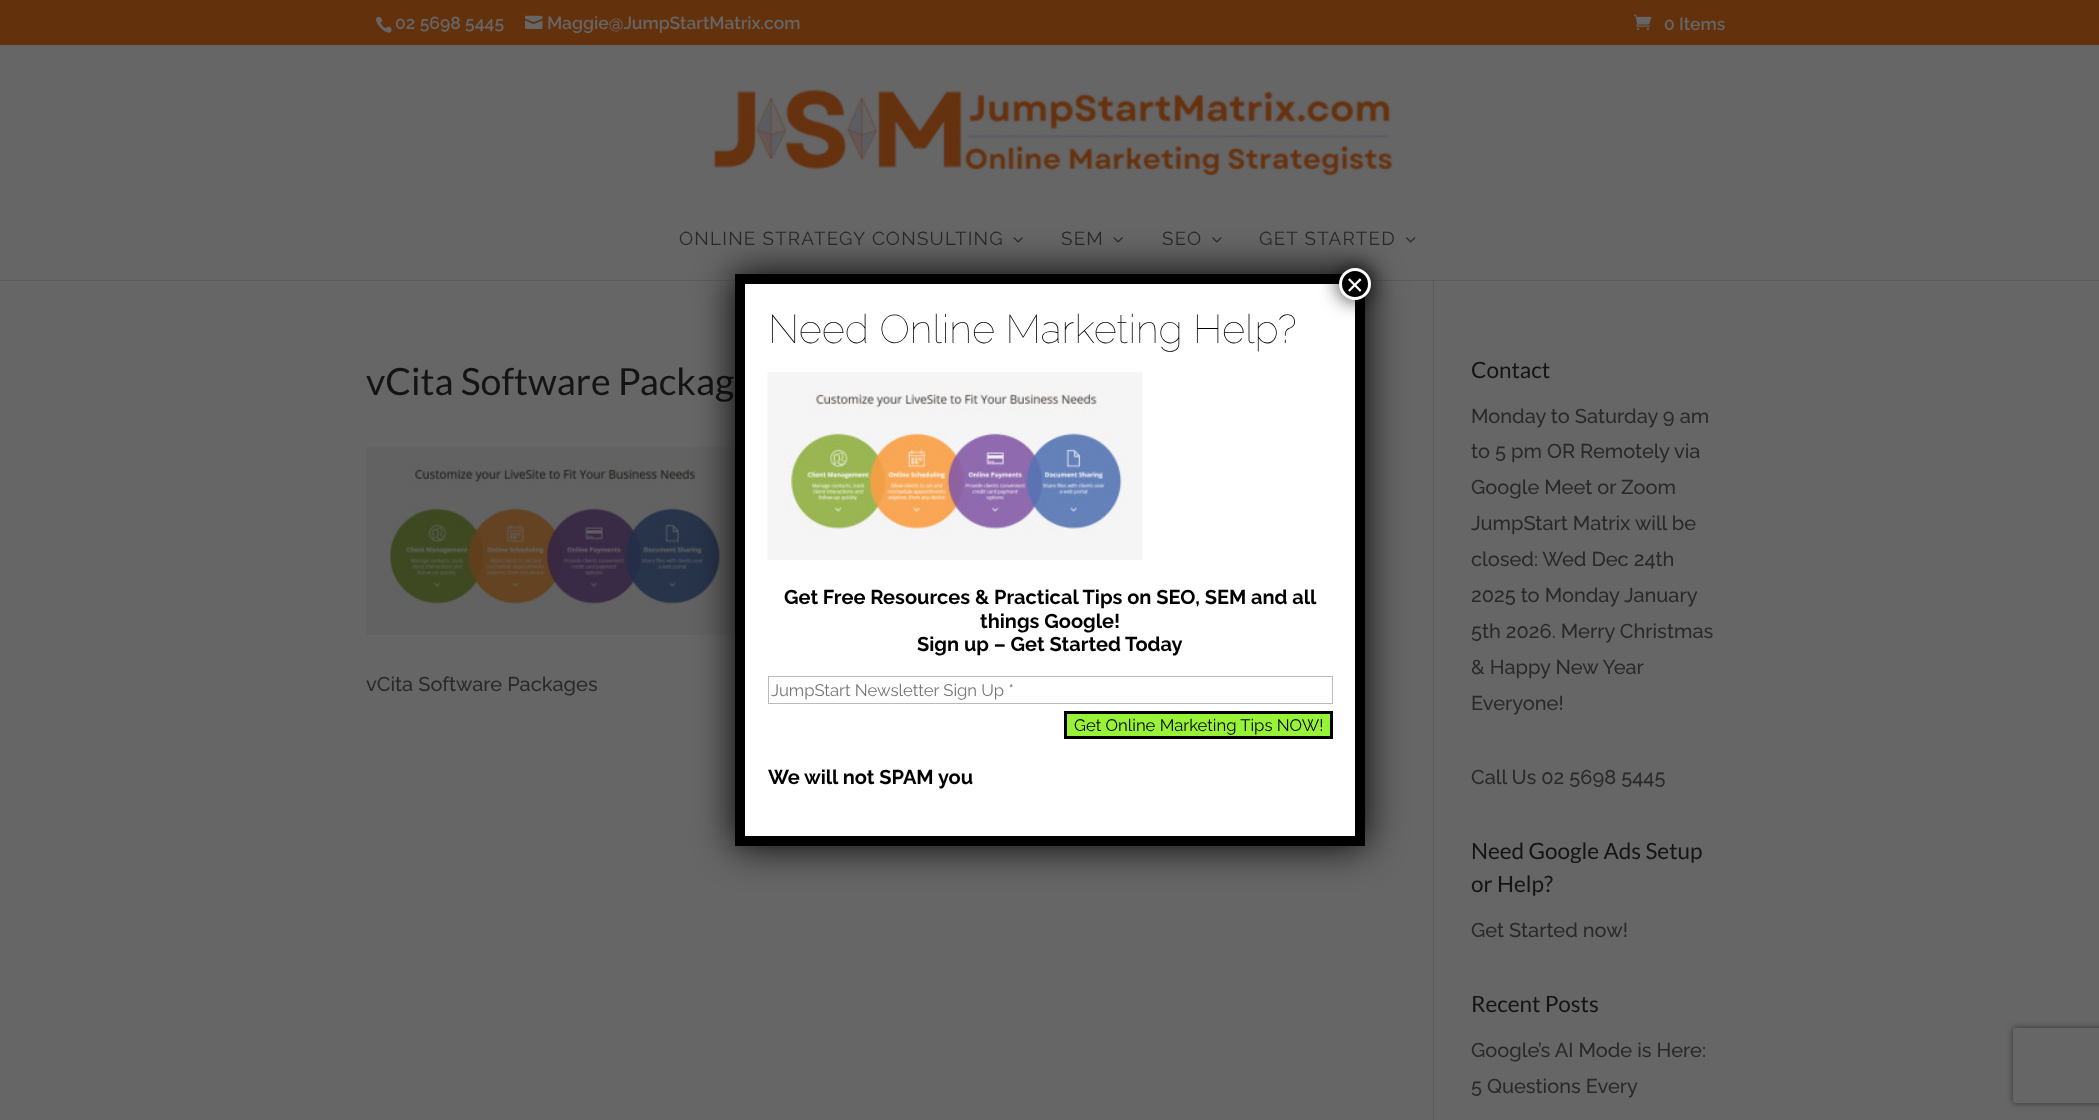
<!DOCTYPE html>
<meta charset="utf-8">
<style>body { margin: 0 } canvas { display: block }</style>
<canvas id="canvas" width="2099" height="1120"></canvas>
<script type="module">
  const canvas = document.getElementById("canvas");
  const ctx = canvas.getContext("2d");
  ctx.miterLimit = 4;
  ctx.fontKerning = "normal";
  async function loadImage(src) {
    const img = new Image();
    img.src = src;
    await img.decode();
    return img;
  }

  ctx.fillStyle = "#666666";
  ctx.fillRect(0, 0, 2099, 1120);
  ctx.fillStyle = "#5c5c5c";
  ctx.fillRect(0, 280, 2099, 1);
  ctx.fillStyle = "#63320c";
  ctx.fillRect(0, 0, 2099, 45);
  ctx.drawImage(await loadImage("img1.png"), 375, 16, 17, 17);
  ctx.font = "600 17.5px Raleway";
  ctx.fillStyle = "#666666";
  ctx.fillText("02 5698 5445", 395, 29);
  ctx.drawImage(await loadImage("img2.png"), 525, 15, 18, 14);
  ctx.fillText("Maggie@JumpStartMatrix.com", 547, 29);
  ctx.drawImage(await loadImage("img3.png"), 1633, 14, 19, 16);
  ctx.fillText("0 Items", 1664, 30);
  ctx.drawImage(await loadImage("img4.png"), 713, 89, 680, 87);
  ctx.letterSpacing = "1.25px";
  ctx.font = "18.75px Raleway";
  ctx.fillStyle = "#292929";
  ctx.fillText("ONLINE STRATEGY CONSULTING", 679, 245);
  ctx.drawImage(await loadImage("img5.png"), 1013, 237, 10, 6);
  ctx.fillText("SEM", 1061, 245);
  ctx.drawImage(await loadImage("img5.png"), 1113, 237, 10, 6);
  ctx.fillText("SEO", 1162, 245);
  ctx.drawImage(await loadImage("img6.png"), 1212, 237, 10, 6);
  ctx.fillText("GET STARTED", 1259, 245);
  ctx.drawImage(await loadImage("img7.png"), 1406, 237, 10, 6);
  ctx.fillStyle = "#5a5a5a";
  ctx.fillRect(1433, 280, 1, 840);
  ctx.fillStyle = "#515151";
  ctx.fillRect(1433, 280, 1, 1);
  ctx.letterSpacing = "0px";
  ctx.font = "37.5px Lato";
  ctx.fillStyle = "#141414";
  ctx.fillText("vCita Software Packag", 366, 395);
  ctx.drawImage(await loadImage("img8.png"), 366, 447, 369, 188);
  ctx.font = "500 20px Raleway";
  ctx.fillStyle = "#292929";
  ctx.fillText("vCita Software Packages", 366, 691);
  ctx.font = "22.5px Lato";
  ctx.fillStyle = "#141414";
  ctx.fillText("Contact", 1471, 378);
  ctx.font = "500 20px Raleway";
  ctx.fillStyle = "#292929";
  ctx.fillText("Monday to Saturday 9 am", 1471, 423);
  ctx.fillText("to 5 pm OR Remotely via", 1471, 458);
  ctx.fillText("Google Meet or Zoom", 1471, 494);
  ctx.fillText("JumpStart Matrix will be", 1471, 530);
  ctx.fillText("closed: Wed Dec 24th", 1471, 566);
  ctx.fillText("2025 to Monday January", 1471, 602);
  ctx.fillText("5th 2026. Merry Christmas", 1471, 638);
  ctx.fillText("& Happy New Year", 1471, 674);
  ctx.fillText("Everyone!", 1471, 710);
  ctx.fillText("Call Us 02 5698 5445", 1471, 784);
  ctx.font = "22.5px Lato";
  ctx.fillStyle = "#141414";
  ctx.fillText("Need Google Ads Setup", 1471, 859);
  ctx.fillText("or Help?", 1471, 892);
  ctx.font = "500 20px Raleway";
  ctx.fillStyle = "#292929";
  ctx.fillText("Get Started now!", 1471, 937);
  ctx.font = "22.5px Lato";
  ctx.fillStyle = "#141414";
  ctx.fillText("Recent Posts", 1471, 1012);
  ctx.font = "500 20px Raleway";
  ctx.fillStyle = "#292929";
  ctx.fillText("Google’s AI Mode is Here:", 1471, 1057);
  ctx.fillText("5 Questions Every", 1471, 1093);
  ctx.fillStyle = "#020202";
  ctx.filter = "blur(19px)";
  ctx.beginPath();
  ctx.roundRect(735, 274, 630, 572, 4);
  ctx.fill();
  ctx.filter = "none";
  ctx.fillStyle = "#ffffff";
  ctx.fillRect(745, 284, 610, 552);
  ctx.beginPath();
  ctx.moveTo(740, 279);
  ctx.lineTo(1360, 279);
  ctx.lineTo(1360, 841);
  ctx.lineTo(740, 841);
  ctx.closePath();
  ctx.strokeStyle = "#000000";
  ctx.lineWidth = 10;
  ctx.stroke();
  ctx.fillStyle = "rgba(2, 2, 2, 0.75)";
  ctx.filter = "blur(9.5px)";
  ctx.beginPath();
  ctx.roundRect(1338, 266, 35, 35, 17.5);
  ctx.fill();
  ctx.filter = "none";
  ctx.fillStyle = "#000000";
  ctx.beginPath();
  ctx.arc(1355, 284, 14.5, 0, Math.PI * 2);
  ctx.fill();
  ctx.strokeStyle = "#ffffff";
  ctx.lineWidth = 3;
  ctx.stroke();
  ctx.font = "30px Liberation Sans";
  ctx.fillStyle = "#ffffff";
  ctx.fillText("×", 1346, 295);
  ctx.font = "100 40px Raleway";
  ctx.fillStyle = "#000000";
  ctx.fillText("Need Online Marketing Help?", 768, 343);
  ctx.drawImage(await loadImage("img9.png"), 767, 372, 376, 188);
  ctx.font = "bold 20px Raleway";
  ctx.fillText("Get Free Resources & Practical Tips on SEO, SEM and all", 784, 604);
  ctx.fillText("things Google!", 980, 628);
  ctx.fillText("Sign up – Get Started Today", 917, 651);
  ctx.strokeStyle = "#bbbbbb";
  ctx.lineWidth = 1;
  ctx.strokeRect(768.5, 676.5, 564, 27);
  ctx.font = "16.7px Raleway";
  ctx.fillStyle = "#757575";
  ctx.fillText("JumpStart Newsletter Sign Up *", 771, 696);
  ctx.fillStyle = "#98f237";
  ctx.beginPath();
  ctx.rect(1065.5, 712.5, 266, 25);
  ctx.fill();
  ctx.strokeStyle = "#000000";
  ctx.lineWidth = 3;
  ctx.stroke();
  ctx.fillStyle = "#000000";
  ctx.fillText("Get Online Marketing Tips NOW!", 1074, 731);
  ctx.font = "bold 20px Raleway";
  ctx.fillText("We will not SPAM you", 768, 784);
  ctx.save();
  ctx.beginPath();
  ctx.moveTo(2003, 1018);
  ctx.lineTo(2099, 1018);
  ctx.lineTo(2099, 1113);
  ctx.lineTo(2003, 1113);
  ctx.closePath();
  ctx.moveTo(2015.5, 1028);
  ctx.lineTo(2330.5, 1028);
  ctx.bezierCurveTo(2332, 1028, 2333, 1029, 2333, 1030.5);
  ctx.lineTo(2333, 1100.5);
  ctx.bezierCurveTo(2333, 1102, 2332, 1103, 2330.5, 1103);
  ctx.lineTo(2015.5, 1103);
  ctx.bezierCurveTo(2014, 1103, 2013, 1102, 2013, 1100.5);
  ctx.lineTo(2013, 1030.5);
  ctx.bezierCurveTo(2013, 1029, 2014, 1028, 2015.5, 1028);
  ctx.closePath();
  ctx.clip("evenodd");
  ctx.fillStyle = "#333333";
  ctx.filter = "blur(3px)";
  ctx.beginPath();
  ctx.roundRect(2013, 1028, 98, 75, 2.5);
  ctx.fill();
  ctx.filter = "none";
  ctx.restore();
</script>
